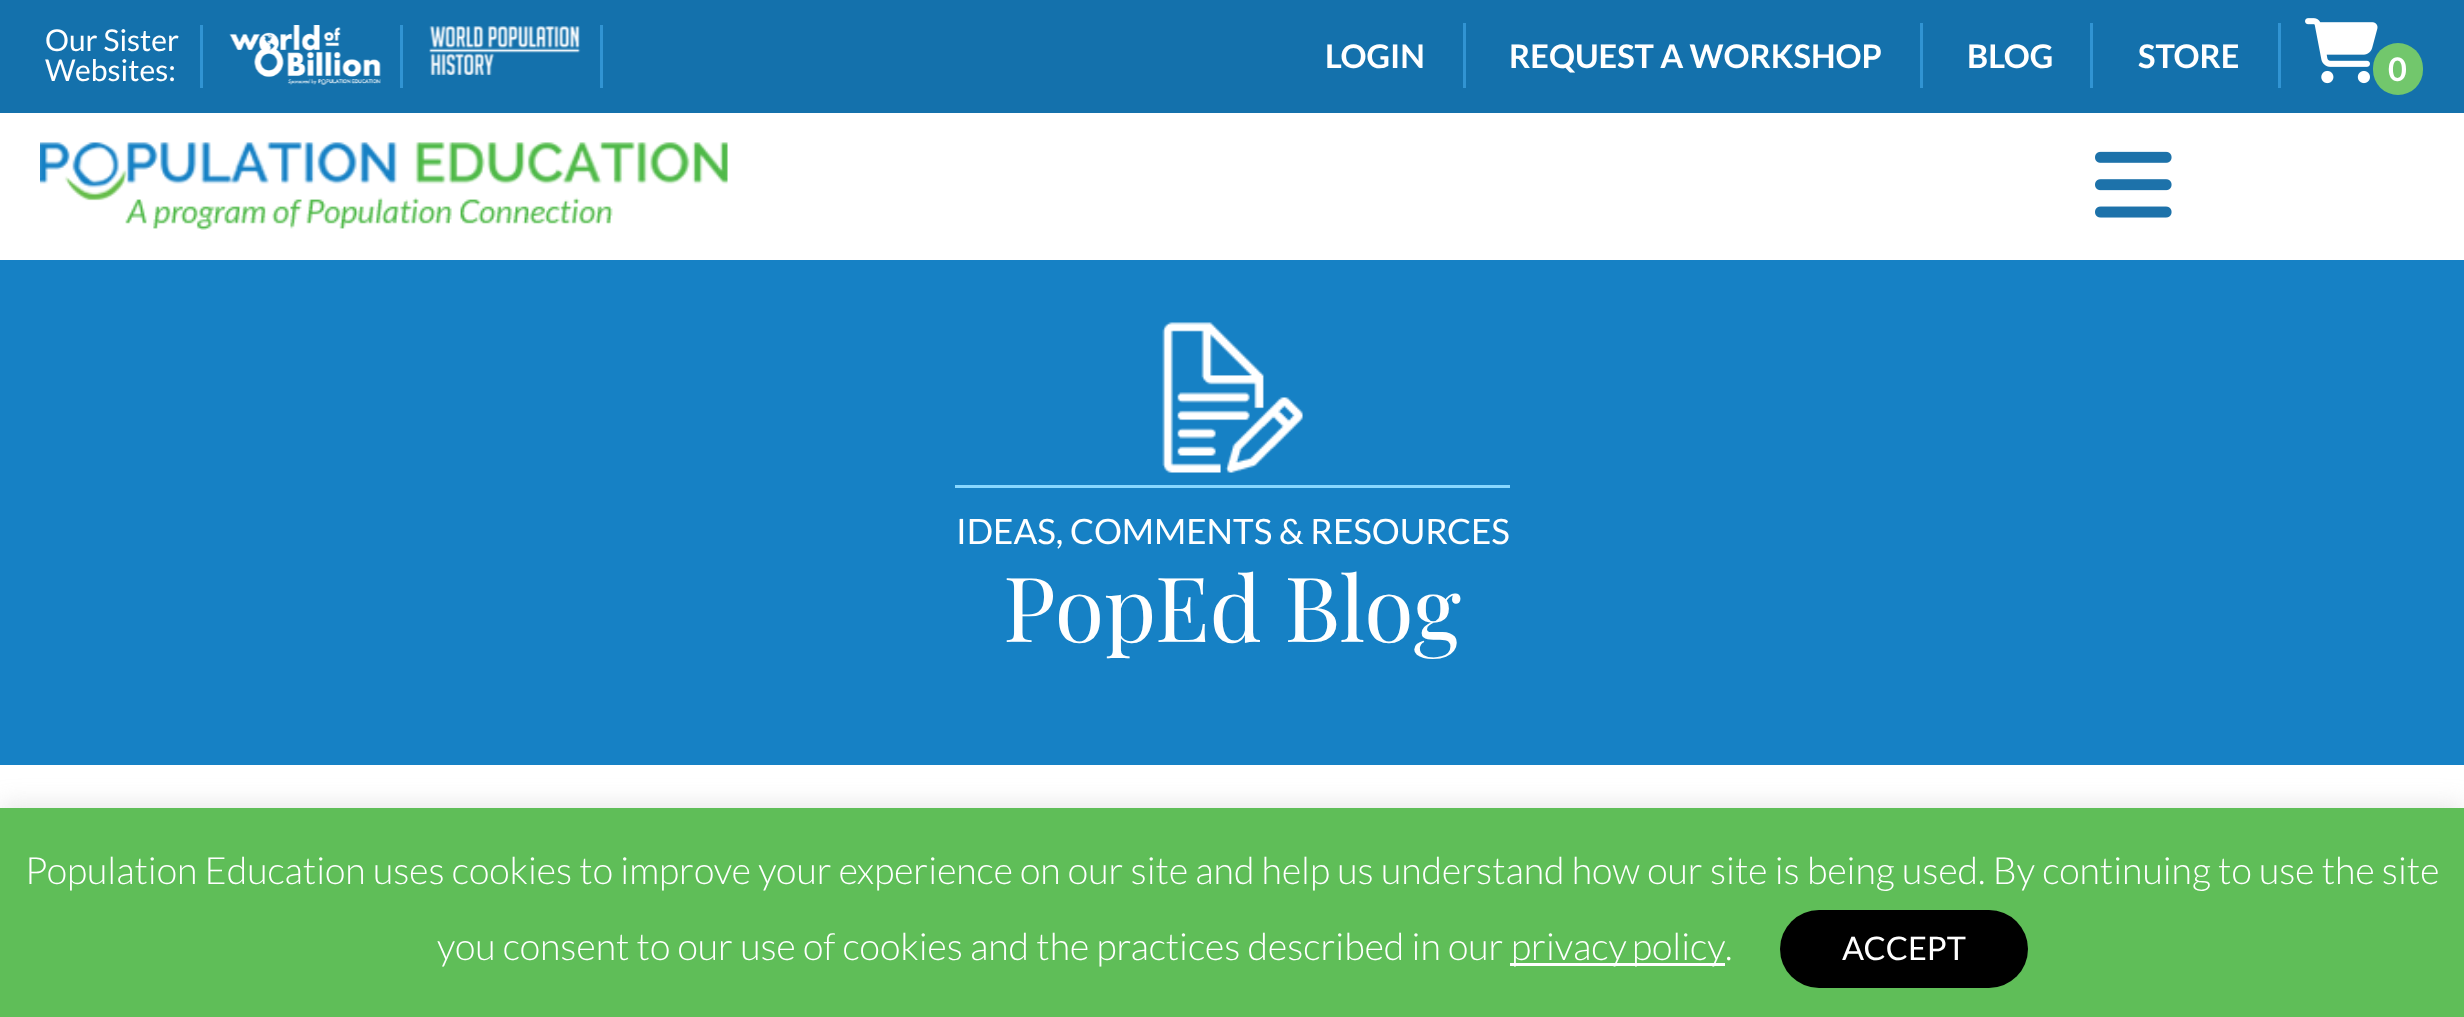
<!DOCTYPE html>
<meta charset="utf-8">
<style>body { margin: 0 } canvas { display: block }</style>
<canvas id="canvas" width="2464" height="1017"></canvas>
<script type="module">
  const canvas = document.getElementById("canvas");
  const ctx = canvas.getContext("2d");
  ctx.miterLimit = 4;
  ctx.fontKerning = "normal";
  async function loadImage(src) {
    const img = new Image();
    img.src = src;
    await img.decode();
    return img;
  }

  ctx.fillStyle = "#ffffff";
  ctx.fillRect(0, 0, 2464, 1017);
  ctx.fillStyle = "#1471ac";
  ctx.fillRect(0, 0, 2464, 113);
  ctx.fillStyle = "#3194d3";
  ctx.fillRect(200, 25, 3, 63);
  ctx.font = "30px Lato";
  ctx.fillStyle = "#ffffff";
  ctx.fillText("Our Sister", 45, 51);
  ctx.fillText("Websites:", 45, 81);
  ctx.fillStyle = "#3194d3";
  ctx.fillRect(400, 25, 3, 63);
  ctx.drawImage(await loadImage("img1.png"), 229, 25, 152, 60);
  ctx.fillRect(600, 25, 3, 63);
  ctx.drawImage(await loadImage("img2.png"), 429, 26, 152, 49);
  ctx.font = "bold 32.5px Lato";
  ctx.fillStyle = "#ffffff";
  ctx.fillText("LOGIN", 1325, 68);
  ctx.fillStyle = "#3194d3";
  ctx.fillRect(1463, 23, 3, 65);
  ctx.fillStyle = "#ffffff";
  ctx.fillText("REQUEST A WORKSHOP", 1509, 68);
  ctx.fillStyle = "#3194d3";
  ctx.fillRect(1920, 23, 3, 65);
  ctx.fillStyle = "#ffffff";
  ctx.fillText("BLOG", 1967, 68);
  ctx.fillStyle = "#3194d3";
  ctx.fillRect(2090, 23, 3, 65);
  ctx.fillStyle = "#ffffff";
  ctx.fillText("STORE", 2138, 68);
  ctx.fillStyle = "#3194d3";
  ctx.fillRect(2278, 23, 3, 65);
  ctx.drawImage(await loadImage("img3.png"), 2305, 18, 73, 66);
  ctx.fillStyle = "#72c76c";
  ctx.beginPath();
  ctx.roundRect(2373, 43, 50, 52, 25);
  ctx.fill();
  ctx.fillStyle = "#ffffff";
  ctx.fillText("0", 2388, 81);
  ctx.drawImage(await loadImage("img4.png"), 40, 142, 688, 88);
  ctx.drawImage(await loadImage("img5.png"), 2095, 151, 77, 67);
  ctx.fillStyle = "#1681c5";
  ctx.fillRect(0, 260, 2464, 505);
  ctx.drawImage(await loadImage("img6.png"), 1162, 322, 141, 151);
  ctx.fillStyle = "#88d7ff";
  ctx.fillRect(955, 485, 555, 3);
  ctx.font = "35px Lato";
  ctx.fillStyle = "#ffffff";
  ctx.fillText("IDEAS, COMMENTS & RESOURCES", 956, 544);
  ctx.font = "90px Playfair Display";
  ctx.fillText("PopEd Blog", 1003, 642);
  ctx.fillStyle = "rgba(172, 171, 171, 0.3)";
  ctx.filter = "blur(12.5px)";
  ctx.beginPath();
  ctx.rect(0, 805, 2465, 210);
  ctx.fill();
  ctx.filter = "none";
  ctx.fillStyle = "#5fbe58";
  ctx.fillRect(0, 808, 2464, 209);
  ctx.font = "300 37.5px Lato";
  ctx.fillStyle = "#ffffff";
  ctx.fillText("Population Education uses cookies to improve your experience on our site and help us understand how our site is being used. By continuing to use the site", 25, 884);
  ctx.fillText("you consent to our use of cookies and the practices described in our", 437, 960);
  ctx.fillRect(1510, 963, 215, 3);
  ctx.wordSpacing = "-2px";
  ctx.fillText("privacy policy", 1511, 960);
  ctx.wordSpacing = "0px";
  ctx.fillText(".", 1725, 960);
  ctx.fillStyle = "#000000";
  ctx.beginPath();
  ctx.roundRect(1780, 910, 248, 78, 39);
  ctx.fill();
  ctx.font = "32.5px Lato";
  ctx.fillStyle = "#ffffff";
  ctx.fillText("ACCEPT", 1842, 960);
</script>
